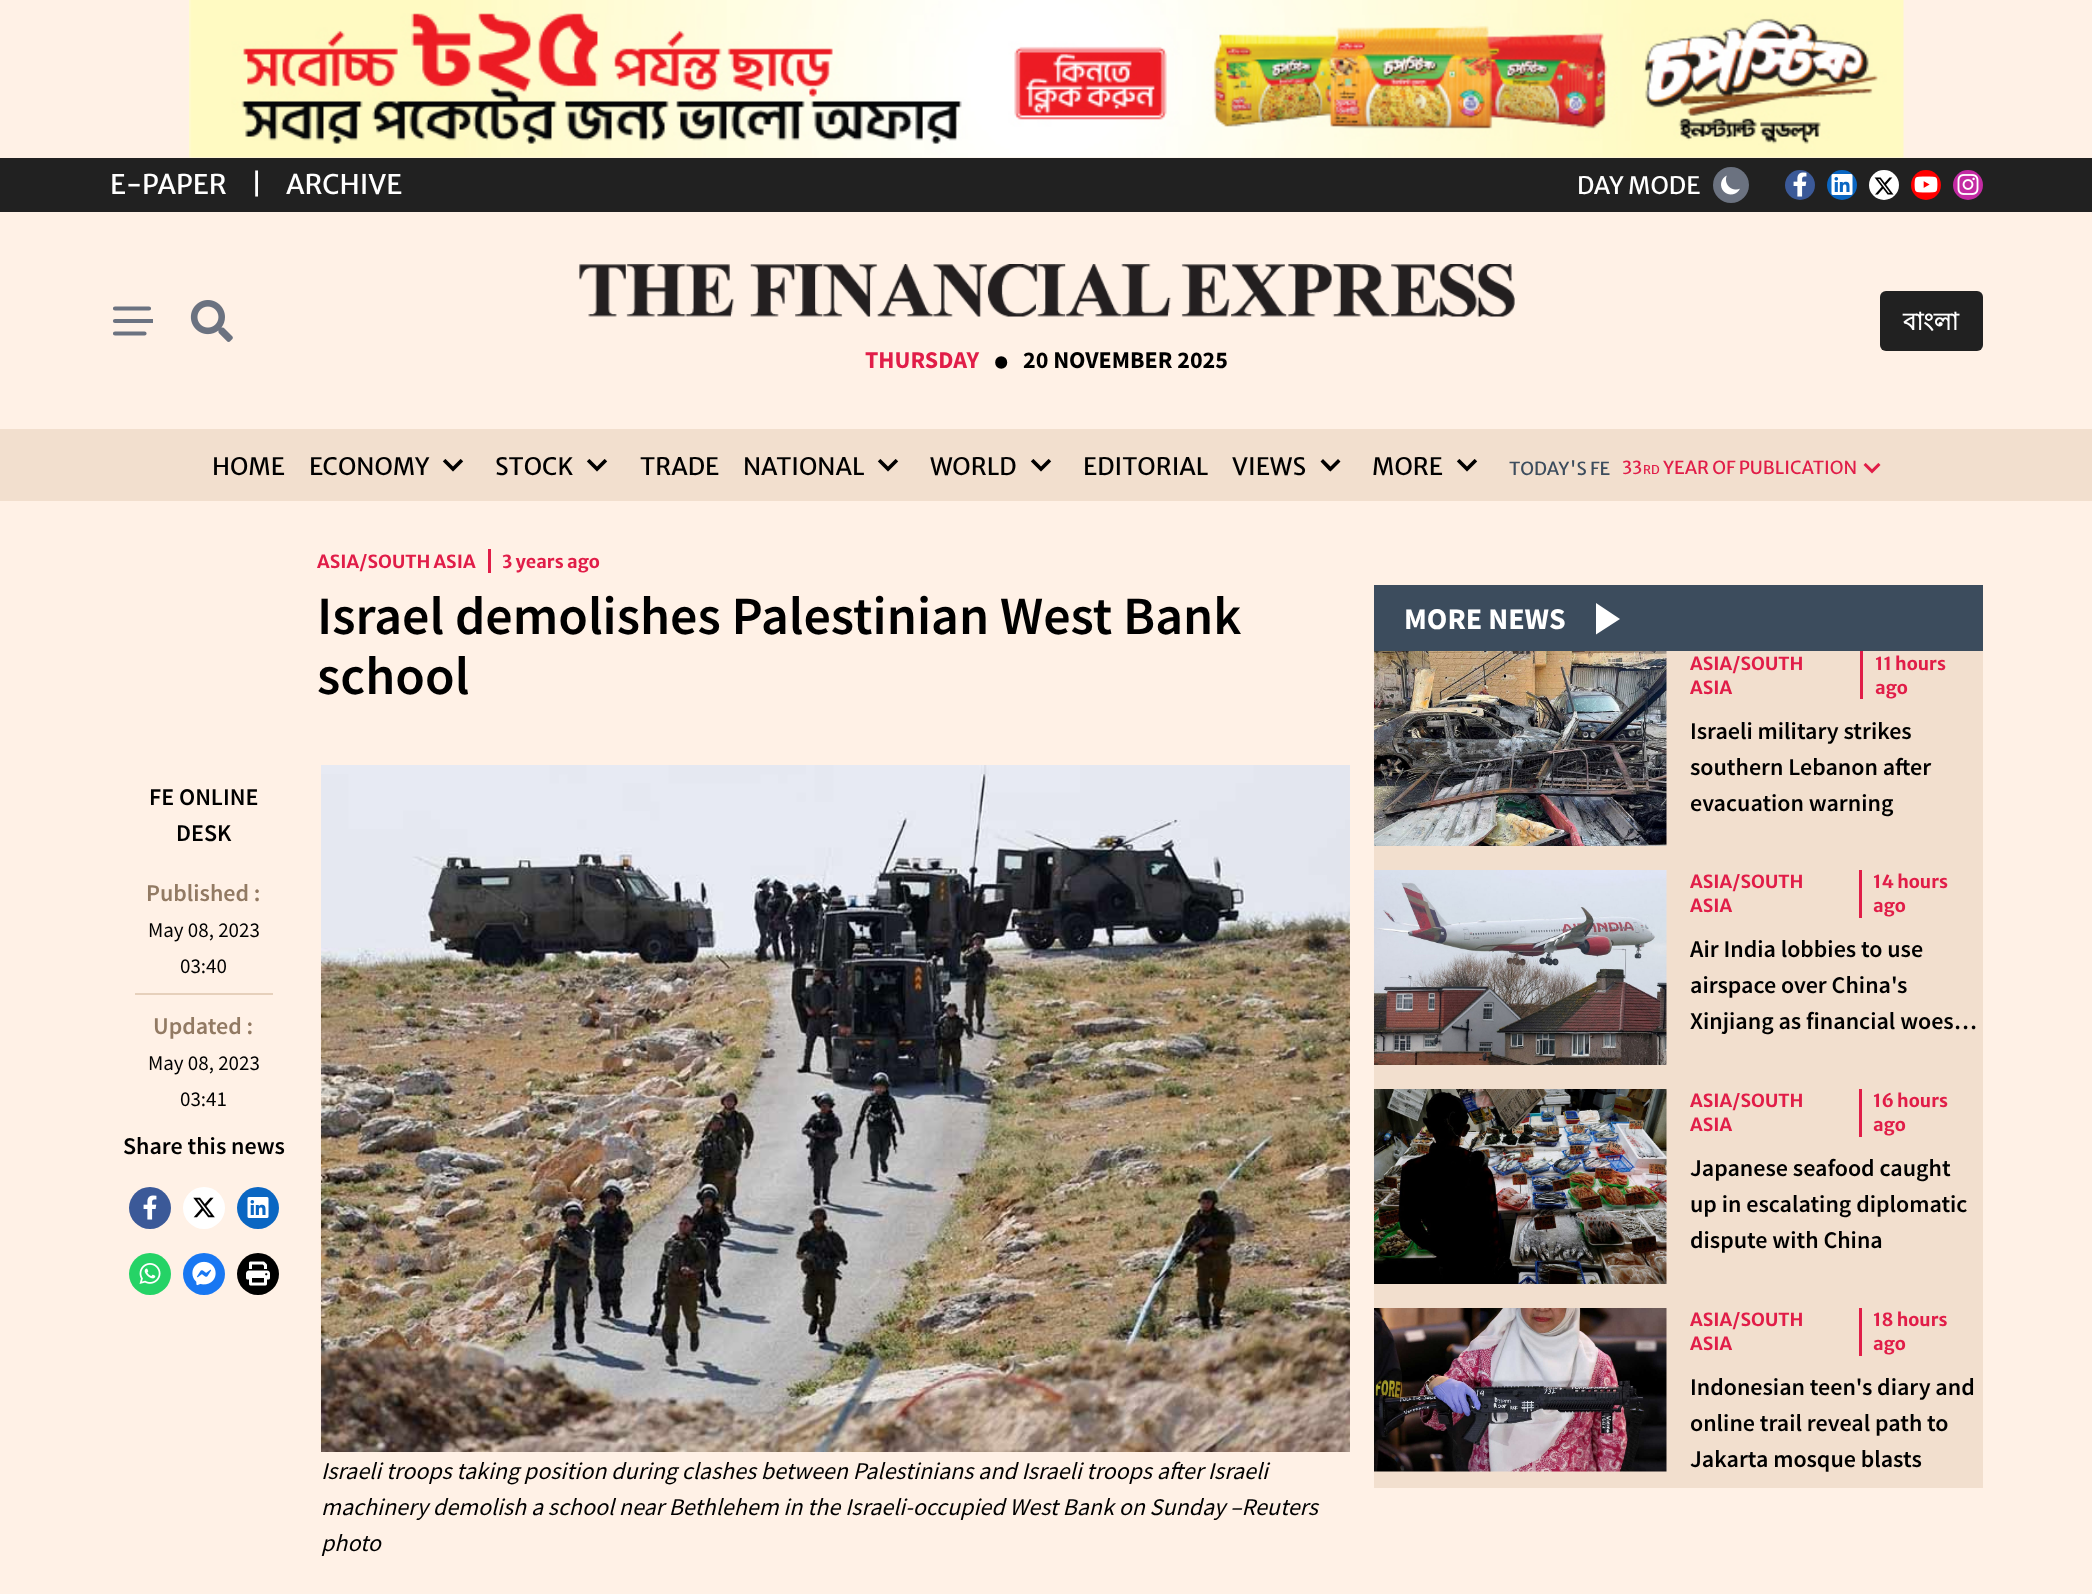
<!DOCTYPE html>
<meta charset="utf-8">
<style>body { margin: 0 } canvas { display: block }</style>
<canvas id="canvas" width="2092" height="1594"></canvas>
<script type="module">
  const canvas = document.getElementById("canvas");
  const ctx = canvas.getContext("2d");
  ctx.miterLimit = 4;
  ctx.fontKerning = "normal";
  async function loadImage(src) {
    const img = new Image();
    img.src = src;
    await img.decode();
    return img;
  }

  ctx.fillStyle = "#fff1e6";
  ctx.fillRect(0, 0, 2092, 1594);
  ctx.drawImage(await loadImage("img1.png"), 189, 0, 1715, 158);
  ctx.fillStyle = "#212121";
  ctx.fillRect(0, 158, 2092, 54);
  ctx.font = "27px Merriweather Sans";
  ctx.fillStyle = "#ffffff";
  ctx.fillText("E-PAPER", 110, 194);
  ctx.fillText("|", 251, 194);
  ctx.fillText("ARCHIVE", 286, 194);
  ctx.font = "24px Merriweather Sans";
  ctx.fillText("DAY MODE", 1577, 194);
  ctx.fillStyle = "#6b7280";
  ctx.beginPath();
  ctx.arc(1731, 185, 18, 0, Math.PI * 2);
  ctx.fill();
  ctx.drawImage(await loadImage("img2.png"), 1721, 175, 19, 20);
  ctx.fillStyle = "#3b5998";
  ctx.beginPath();
  ctx.arc(1800, 185, 15, 0, Math.PI * 2);
  ctx.fill();
  ctx.drawImage(await loadImage("img3.png"), 1793, 172, 14, 25);
  ctx.fillStyle = "#0a66c2";
  ctx.beginPath();
  ctx.arc(1842, 185, 15, 0, Math.PI * 2);
  ctx.fill();
  ctx.drawImage(await loadImage("img4.png"), 1831, 174, 22, 21);
  ctx.fillStyle = "#ffffff";
  ctx.beginPath();
  ctx.arc(1884, 185, 15, 0, Math.PI * 2);
  ctx.fill();
  ctx.drawImage(await loadImage("img5.png"), 1874, 177, 20, 18);
  ctx.fillStyle = "#ff0000";
  ctx.beginPath();
  ctx.arc(1926, 185, 15, 0, Math.PI * 2);
  ctx.fill();
  ctx.drawImage(await loadImage("img6.png"), 1914, 176, 24, 17);
  ctx.fillStyle = "#c32aa3";
  ctx.beginPath();
  ctx.arc(1968, 185, 15, 0, Math.PI * 2);
  ctx.fill();
  ctx.drawImage(await loadImage("img7.png"), 1957, 174, 22, 21);
  ctx.save();
  ctx.beginPath();
  ctx.rect(111, 300, 42, 42);
  ctx.clip();
  ctx.beginPath();
  ctx.moveTo(115, 308.5);
  ctx.lineTo(149, 308.5);
  ctx.moveTo(115, 321);
  ctx.lineTo(157, 321);
  ctx.moveTo(115, 333.5);
  ctx.lineTo(144.5, 333.5);
  ctx.strokeStyle = "#6b7280";
  ctx.lineWidth = 4.2;
  ctx.lineCap = "round";
  ctx.stroke();
  ctx.restore();
  ctx.drawImage(await loadImage("img8.png"), 190, 300, 43, 42);
  ctx.fillStyle = "#212121";
  ctx.beginPath();
  ctx.roundRect(1880, 291, 103, 60, 6);
  ctx.fill();
  ctx.font = "bold 24px Lohit Bengali";
  ctx.fillStyle = "#ffffff";
  ctx.fillText("বাংলা", 1903, 330);
  ctx.drawImage(await loadImage("img9.png"), 579, 264, 936, 53);
  ctx.font = "bold 24px Source Sans Pro";
  ctx.fillStyle = "#e11d48";
  ctx.fillText("THURSDAY", 865, 368);
  ctx.font = "bold 68px Source Sans Pro";
  ctx.fillStyle = "#000000";
  ctx.fillText(".", 991, 368);
  ctx.font = "bold 24px Source Sans Pro";
  ctx.fillText("20 NOVEMBER 2025", 1023, 368);
  ctx.fillStyle = "#f2dfce";
  ctx.fillRect(0, 429, 2092, 72);
  ctx.font = "24px Merriweather Sans";
  ctx.fillStyle = "#000000";
  ctx.fillText("HOME", 212, 475);
  ctx.fillText("ECONOMY", 309, 475);
  ctx.drawImage(await loadImage("img10.png"), 442, 459, 22, 13);
  ctx.fillText("STOCK", 495, 475);
  ctx.drawImage(await loadImage("img10.png"), 586, 459, 22, 13);
  ctx.fillText("TRADE", 640, 475);
  ctx.fillText("NATIONAL", 743, 475);
  ctx.drawImage(await loadImage("img10.png"), 877, 459, 22, 13);
  ctx.fillText("WORLD", 930, 475);
  ctx.drawImage(await loadImage("img10.png"), 1030, 459, 22, 13);
  ctx.fillText("EDITORIAL", 1083, 475);
  ctx.fillText("VIEWS", 1232, 475);
  ctx.beginPath();
  ctx.moveTo(1329, 470.5);
  ctx.lineTo(1330.5, 471.5);
  ctx.lineTo(1340.5, 461.5);
  ctx.lineTo(1338, 459);
  ctx.lineTo(1330.5, 466.5);
  ctx.lineTo(1323, 459);
  ctx.lineTo(1320.5, 461.5);
  ctx.closePath();
  ctx.fill();
  ctx.fillText("MORE", 1372, 475);
  ctx.drawImage(await loadImage("img10.png"), 1456, 459, 22, 13);
  ctx.font = "18px Merriweather Sans";
  ctx.fillStyle = "#3c4c5d";
  ctx.fillText("TODAY'S FE", 1509, 475);
  ctx.fillStyle = "#e11d48";
  ctx.fillText("33", 1622, 474);
  ctx.font = "12px Merriweather Sans";
  ctx.fillText("RD", 1643, 474);
  ctx.font = "18px Merriweather Sans";
  ctx.fillText("YEAR OF PUBLICATION", 1663, 474);
  ctx.drawImage(await loadImage("img11.png"), 1863, 463, 18, 11);
  ctx.font = "bold 18px Merriweather Sans";
  ctx.fillText("ASIA/SOUTH ASIA", 317, 568);
  ctx.fillRect(488, 549, 3, 24);
  ctx.fillText("3 years ago", 502, 568);
  ctx.font = "600 54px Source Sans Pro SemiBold";
  ctx.fillStyle = "#000000";
  ctx.fillText("Israel demolishes Palestinian West Bank", 317, 634);
  ctx.fillText("school", 317, 694);
  ctx.font = "600 24px Source Sans Pro SemiBold";
  ctx.fillText("FE ONLINE", 149, 805);
  ctx.fillText("DESK", 176, 841);
  ctx.fillStyle = "#927a63";
  ctx.fillText("Published :", 146, 901);
  ctx.font = "21px Source Sans Pro";
  ctx.fillStyle = "#000000";
  ctx.fillText("May 08, 2023", 148, 937);
  ctx.fillText("03:40", 180, 973);
  ctx.fillStyle = "#e6d0bb";
  ctx.fillRect(135, 993, 138, 2);
  ctx.font = "600 24px Source Sans Pro SemiBold";
  ctx.fillStyle = "#927a63";
  ctx.fillText("Updated :", 153, 1034);
  ctx.font = "21px Source Sans Pro";
  ctx.fillStyle = "#000000";
  ctx.fillText("May 08, 2023", 148, 1070);
  ctx.fillText("03:41", 180, 1106);
  ctx.font = "600 24px Source Sans Pro SemiBold";
  ctx.fillText("Share this news", 123, 1154);
  ctx.fillStyle = "#3b5998";
  ctx.beginPath();
  ctx.arc(150, 1208, 21, 0, Math.PI * 2);
  ctx.fill();
  ctx.drawImage(await loadImage("img3.png"), 143, 1195, 14, 25);
  ctx.fillStyle = "#ffffff";
  ctx.beginPath();
  ctx.arc(204, 1208, 21, 0, Math.PI * 2);
  ctx.fill();
  ctx.drawImage(await loadImage("img12.png"), 193, 1197, 22, 21);
  ctx.fillStyle = "#0a66c2";
  ctx.beginPath();
  ctx.arc(258, 1208, 21, 0, Math.PI * 2);
  ctx.fill();
  ctx.drawImage(await loadImage("img13.png"), 247, 1197, 22, 21);
  ctx.fillStyle = "#25d366";
  ctx.beginPath();
  ctx.arc(150, 1274, 21, 0, Math.PI * 2);
  ctx.fill();
  ctx.drawImage(await loadImage("img14.png"), 139, 1263, 22, 21);
  ctx.fillStyle = "#1877f2";
  ctx.beginPath();
  ctx.arc(204, 1274, 21, 0, Math.PI * 2);
  ctx.fill();
  ctx.drawImage(await loadImage("img15.png"), 192, 1261, 24, 25);
  ctx.fillStyle = "#000000";
  ctx.beginPath();
  ctx.arc(258, 1274, 21, 0, Math.PI * 2);
  ctx.fill();
  ctx.drawImage(await loadImage("img16.png"), 246, 1261, 24, 25);
  ctx.drawImage(await loadImage("img17.png"), 321, 765, 1029, 687);
  ctx.font = "italic 24px Source Sans Pro";
  ctx.fillText("Israeli troops taking position during clashes between Palestinians and Israeli troops after Israeli", 321, 1479);
  ctx.fillText("machinery demolish a school near Bethlehem in the Israeli-occupied West Bank on Sunday –Reuters", 321, 1515);
  ctx.fillText("photo", 321, 1551);
  ctx.fillStyle = "#f2dfce";
  ctx.fillRect(1374, 651, 609, 837);
  ctx.fillStyle = "#3c4c5d";
  ctx.fillRect(1374, 585, 609, 66);
  ctx.font = "bold 30px Source Sans Pro";
  ctx.fillStyle = "#ffffff";
  ctx.fillText("MORE NEWS", 1404, 629);
  ctx.beginPath();
  ctx.moveTo(1620, 619);
  ctx.lineTo(1596, 634.5);
  ctx.lineTo(1596, 603);
  ctx.closePath();
  ctx.fill();
  ctx.drawImage(await loadImage("img18.png"), 1374, 651, 293, 195);
  ctx.font = "bold 18px Merriweather Sans";
  ctx.fillStyle = "#e11d48";
  ctx.fillText("ASIA/SOUTH", 1690, 670);
  ctx.fillText("ASIA", 1690, 694);
  ctx.fillRect(1860, 651, 3, 48);
  ctx.fillText("11 hours", 1875, 670);
  ctx.fillText("ago", 1875, 694);
  ctx.font = "600 24px Source Sans Pro SemiBold";
  ctx.fillStyle = "#000000";
  ctx.fillText("Israeli military strikes", 1690, 739);
  ctx.fillText("southern Lebanon after", 1690, 775);
  ctx.fillText("evacuation warning", 1690, 811);
  ctx.drawImage(await loadImage("img19.png"), 1374, 870, 293, 195);
  ctx.font = "bold 18px Merriweather Sans";
  ctx.fillStyle = "#e11d48";
  ctx.fillText("ASIA/SOUTH", 1690, 888);
  ctx.fillText("ASIA", 1690, 912);
  ctx.fillRect(1859, 870, 3, 48);
  ctx.fillText("14 hours", 1873, 888);
  ctx.fillText("ago", 1873, 912);
  ctx.font = "600 24px Source Sans Pro SemiBold";
  ctx.fillStyle = "#000000";
  ctx.fillText("Air India lobbies to use", 1690, 957);
  ctx.fillText("airspace over China's", 1690, 993);
  ctx.fillText("Xinjiang as financial woes…", 1690, 1029);
  ctx.drawImage(await loadImage("img20.png"), 1374, 1089, 293, 195);
  ctx.font = "bold 18px Merriweather Sans";
  ctx.fillStyle = "#e11d48";
  ctx.fillText("ASIA/SOUTH", 1690, 1107);
  ctx.fillText("ASIA", 1690, 1131);
  ctx.fillRect(1859, 1089, 3, 48);
  ctx.fillText("16 hours", 1873, 1107);
  ctx.fillText("ago", 1873, 1131);
  ctx.font = "600 24px Source Sans Pro SemiBold";
  ctx.fillStyle = "#000000";
  ctx.fillText("Japanese seafood caught", 1690, 1176);
  ctx.fillText("up in escalating diplomatic", 1690, 1212);
  ctx.fillText("dispute with China", 1690, 1248);
  ctx.drawImage(await loadImage("img21.png"), 1374, 1308, 293, 164);
  ctx.font = "bold 18px Merriweather Sans";
  ctx.fillStyle = "#e11d48";
  ctx.fillText("ASIA/SOUTH", 1690, 1326);
  ctx.fillText("ASIA", 1690, 1350);
  ctx.fillRect(1859, 1308, 3, 48);
  ctx.fillText("18 hours", 1873, 1326);
  ctx.fillText("ago", 1873, 1350);
  ctx.font = "600 24px Source Sans Pro SemiBold";
  ctx.fillStyle = "#000000";
  ctx.fillText("Indonesian teen's diary and", 1690, 1395);
  ctx.fillText("online trail reveal path to", 1690, 1431);
  ctx.fillText("Jakarta mosque blasts", 1690, 1467);
</script>
